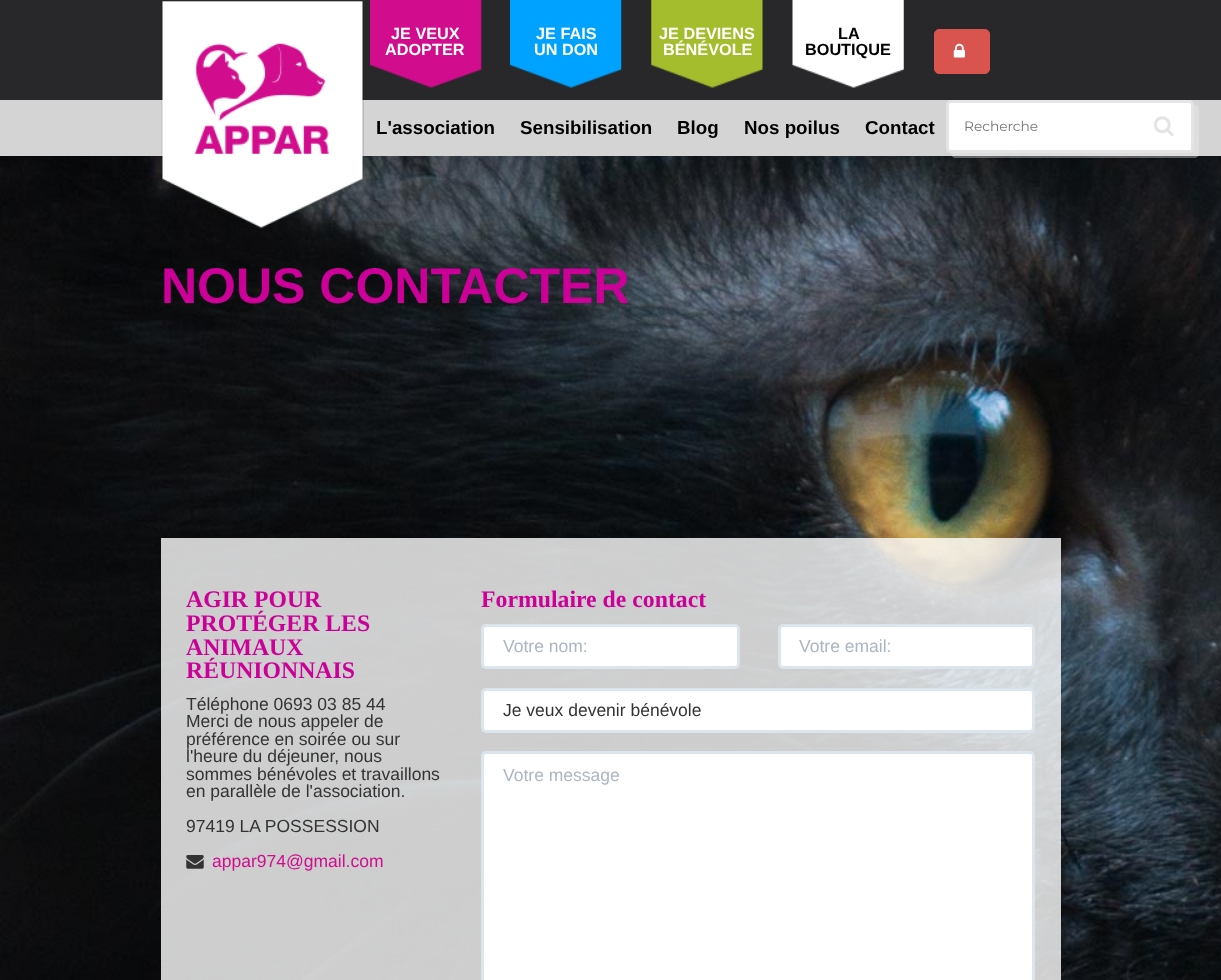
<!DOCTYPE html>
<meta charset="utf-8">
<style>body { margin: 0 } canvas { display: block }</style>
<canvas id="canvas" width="1221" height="980"></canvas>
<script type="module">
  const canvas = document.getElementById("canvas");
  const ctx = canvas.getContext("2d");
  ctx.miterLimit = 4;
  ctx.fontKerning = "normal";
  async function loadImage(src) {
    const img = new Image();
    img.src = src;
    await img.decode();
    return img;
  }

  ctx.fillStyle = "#ffffff";
  ctx.fillRect(0, 0, 1221, 980);
  ctx.drawImage(await loadImage("img1.png"), 0, 156, 1221, 824);
  ctx.fillStyle = "#28282a";
  ctx.fillRect(0, 0, 1221, 100);
  ctx.fillStyle = "#d4d4d4";
  ctx.fillRect(0, 100, 1221, 56);
  ctx.drawImage(await loadImage("img2.png"), 161, 1, 203, 227);
  ctx.drawImage(await loadImage("img3.png"), 370, 0, 112, 88);
  ctx.font = "bold 16.25px Liberation Sans";
  ctx.fillStyle = "#ffffff";
  ctx.fillText("JE VEUX", 391, 39);
  ctx.fillText("ADOPTER", 385, 55);
  ctx.drawImage(await loadImage("img4.png"), 510, 0, 112, 88);
  ctx.fillText("JE FAIS", 536, 39);
  ctx.fillText("UN DON", 534, 55);
  ctx.drawImage(await loadImage("img5.png"), 651, 0, 112, 88);
  ctx.fillText("JE DEVIENS", 659, 39);
  ctx.fillText("BÉNÉVOLE", 663, 55);
  ctx.drawImage(await loadImage("img6.png"), 792, 0, 112, 88);
  ctx.fillStyle = "#000000";
  ctx.fillText("LA", 838, 39);
  ctx.fillText("BOUTIQUE", 805, 55);
  ctx.fillStyle = "#d9534f";
  ctx.beginPath();
  ctx.roundRect(934.5, 29.5, 55, 44, 4.5);
  ctx.fill();
  ctx.strokeStyle = "#d9534f";
  ctx.stroke();
  ctx.drawImage(await loadImage("img7.png"), 953, 43, 12, 15);
  ctx.font = "bold 18.75px Liberation Sans";
  ctx.fillStyle = "#000000";
  ctx.fillText("L'association", 376, 134);
  ctx.fillText("Sensibilisation", 520, 134);
  ctx.fillText("Blog", 677, 134);
  ctx.fillText("Nos poilus", 744, 134);
  ctx.fillText("Contact", 865, 134);
  ctx.fillStyle = "rgba(241, 241, 241, 0.35)";
  ctx.beginPath();
  ctx.moveTo(951, 152);
  ctx.lineTo(951, 153);
  ctx.bezierCurveTo(951, 156, 953, 158, 956, 158);
  ctx.lineTo(1194, 158);
  ctx.bezierCurveTo(1197, 158, 1199, 156, 1199, 153);
  ctx.lineTo(1199, 110);
  ctx.bezierCurveTo(1199, 107, 1197, 105, 1194, 105);
  ctx.lineTo(1194, 140);
  ctx.bezierCurveTo(1194, 144, 1195, 152, 1189, 152);
  ctx.closePath();
  ctx.fill();
  ctx.fillStyle = "#ffffff";
  ctx.beginPath();
  ctx.roundRect(947.5, 101.5, 245, 50, 3.5);
  ctx.fill();
  ctx.strokeStyle = "#e4e4e4";
  ctx.lineWidth = 3;
  ctx.stroke();
  ctx.font = "13.75px Montserrat";
  ctx.fillStyle = "#757575";
  ctx.fillText("Recherche", 964, 131);
  ctx.drawImage(await loadImage("img8.png"), 1154, 116, 20, 20);
  ctx.font = "bold 50px Liberation Sans";
  ctx.fillStyle = "#cc0099";
  ctx.fillText("NOUS CONTACTER", 161, 303);
  ctx.fillStyle = "rgba(255, 255, 255, 0.8)";
  ctx.fillRect(161, 538, 900, 442);
  ctx.font = "bold 23.75px Liberation Serif";
  ctx.fillStyle = "#cc0099";
  ctx.fillText("AGIR POUR", 186, 607);
  ctx.fillText("PROTÉGER LES", 186, 631);
  ctx.fillText("ANIMAUX", 186, 655);
  ctx.fillText("RÉUNIONNAIS", 186, 678);
  ctx.font = "17.5px Liberation Sans";
  ctx.fillStyle = "#333333";
  ctx.fillText("Téléphone 0693 03 85 44", 186, 710);
  ctx.fillText("Merci de nous appeler de", 186, 727);
  ctx.fillText("préférence en soirée ou sur", 186, 745);
  ctx.fillText("l'heure du déjeuner, nous", 186, 762);
  ctx.fillText("sommes bénévoles et travaillons", 186, 780);
  ctx.fillText("en parallèle de l'association.", 186, 797);
  ctx.fillText("97419 LA POSSESSION", 186, 832);
  ctx.drawImage(await loadImage("img9.png"), 186, 855, 18, 14);
  ctx.fillStyle = "#d10d8e";
  ctx.fillText("appar974@gmail.com", 212, 867);
  ctx.font = "bold 23.75px Liberation Serif";
  ctx.fillStyle = "#cc0099";
  ctx.fillText("Formulaire de contact", 481, 607);
  ctx.fillStyle = "#ffffff";
  ctx.beginPath();
  ctx.roundRect(482.5, 625.5, 256, 42, 3.5);
  ctx.fill();
  ctx.strokeStyle = "#dce4ec";
  ctx.stroke();
  ctx.font = "17.5px Liberation Sans";
  ctx.fillStyle = "#acb6c0";
  ctx.fillText("Votre nom:", 503, 652);
  ctx.fillStyle = "#ffffff";
  ctx.beginPath();
  ctx.roundRect(779.5, 625.5, 254, 42, 3.5);
  ctx.fill();
  ctx.stroke();
  ctx.fillStyle = "#acb6c0";
  ctx.fillText("Votre email:", 799, 652);
  ctx.fillStyle = "#ffffff";
  ctx.beginPath();
  ctx.roundRect(482.5, 689.5, 551, 42, 3.5);
  ctx.fill();
  ctx.stroke();
  ctx.fillStyle = "#333333";
  ctx.fillText("Je veux devenir bénévole", 503, 716);
  ctx.fillStyle = "#ffffff";
  ctx.beginPath();
  ctx.roundRect(482.5, 752.5, 551, 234, 3.5);
  ctx.fill();
  ctx.stroke();
  ctx.fillStyle = "#acb6c0";
  ctx.fillText("Votre message", 503, 781);
</script>
